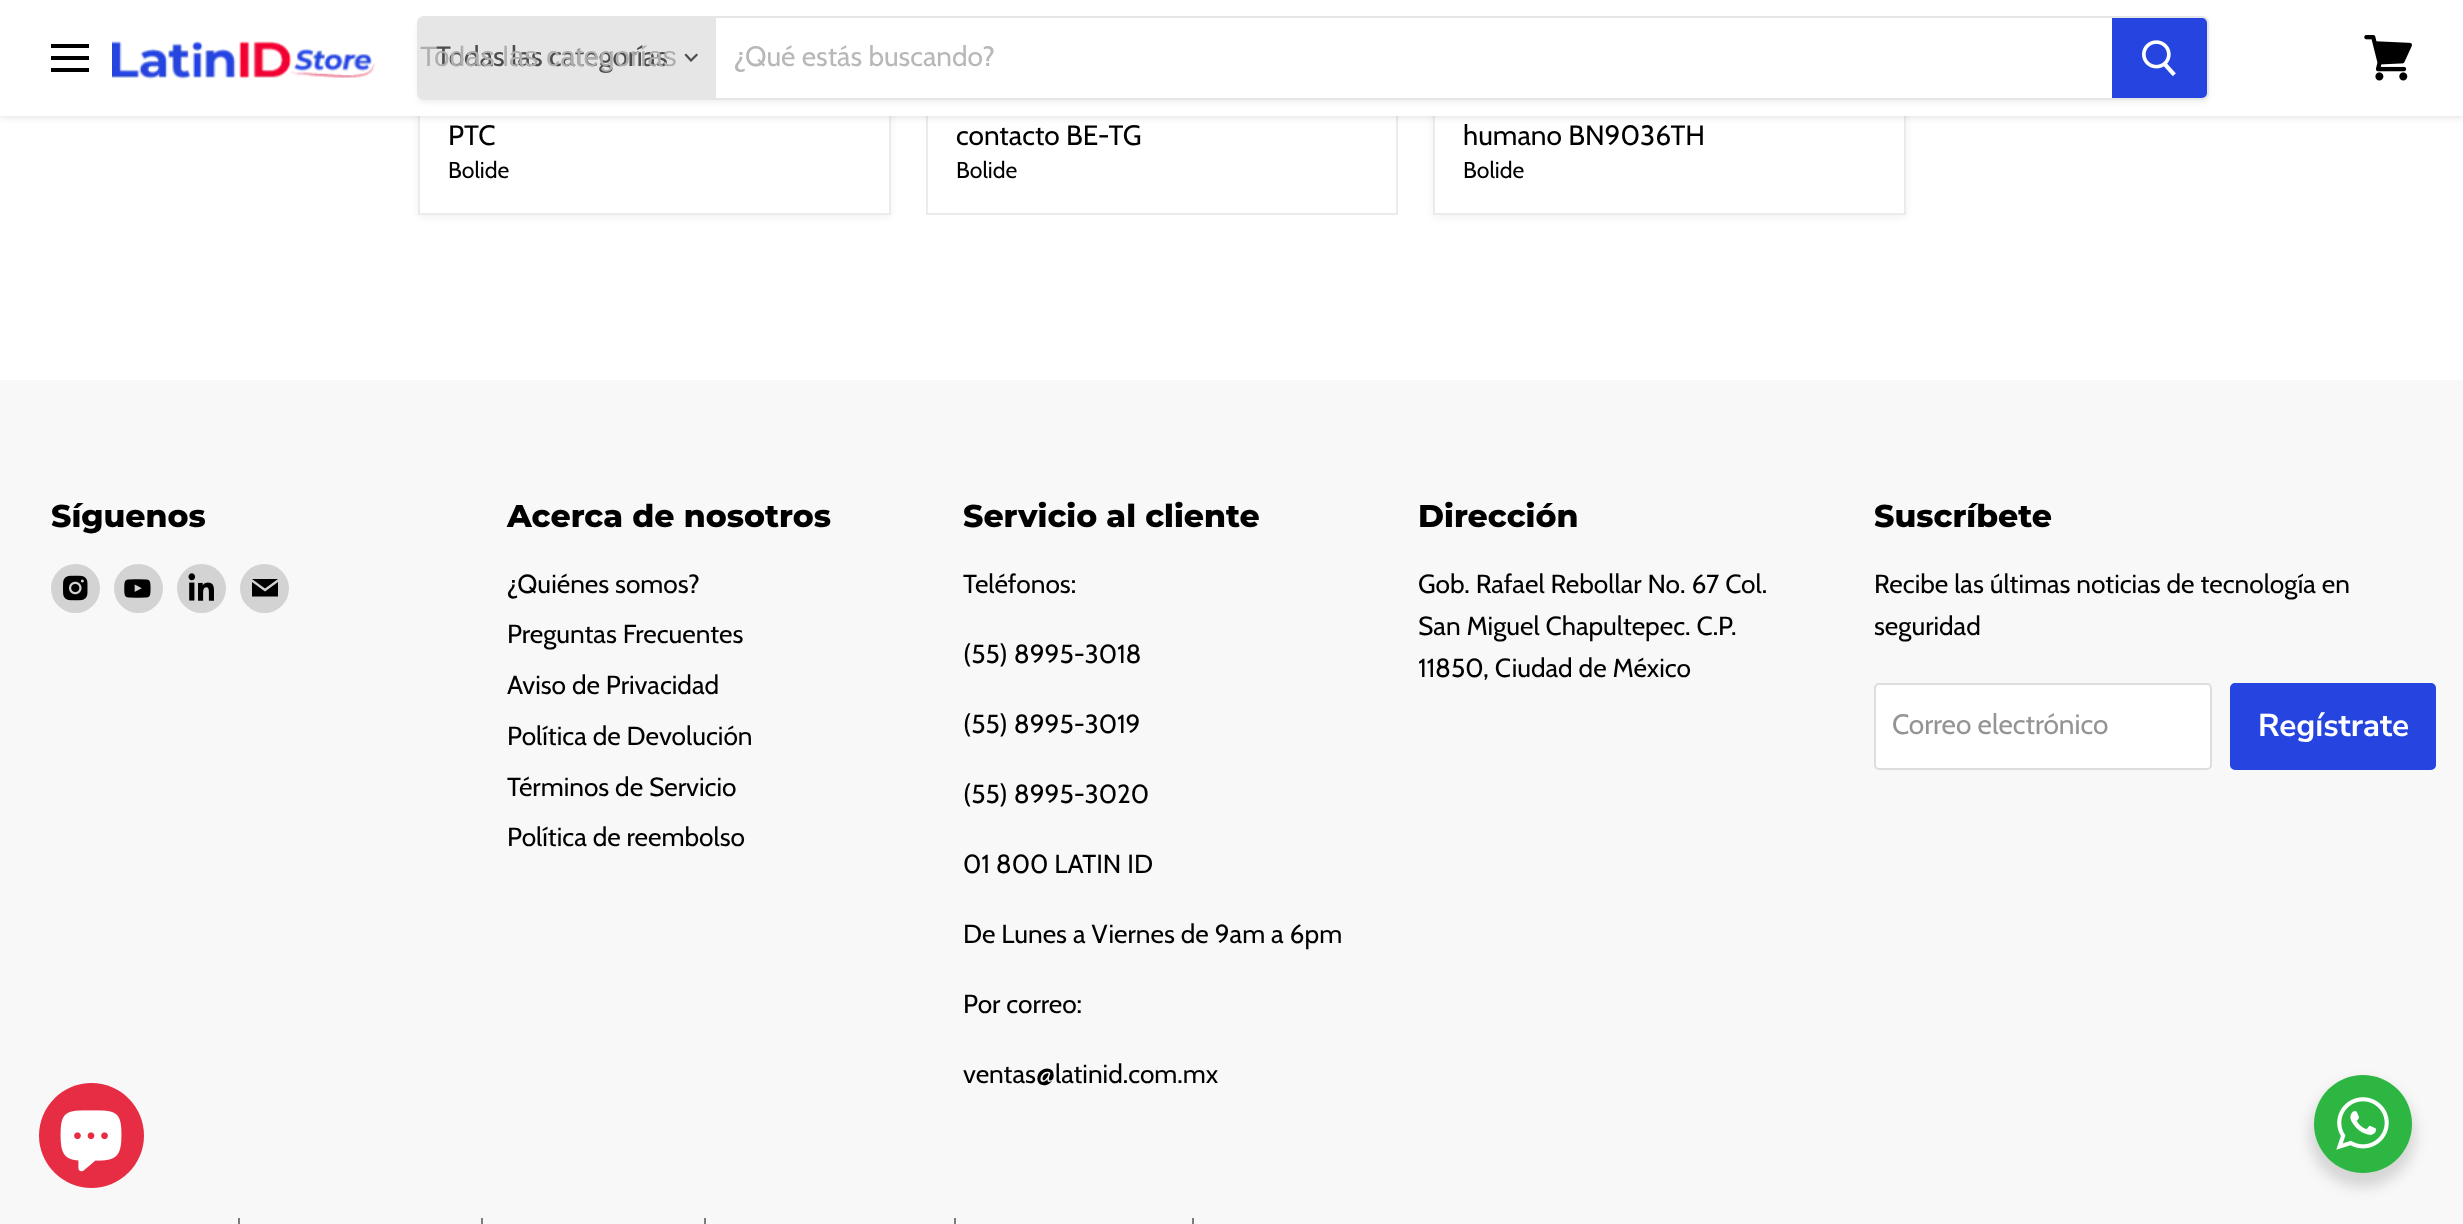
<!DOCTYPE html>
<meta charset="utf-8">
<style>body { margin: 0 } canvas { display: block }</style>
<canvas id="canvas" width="2463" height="1224"></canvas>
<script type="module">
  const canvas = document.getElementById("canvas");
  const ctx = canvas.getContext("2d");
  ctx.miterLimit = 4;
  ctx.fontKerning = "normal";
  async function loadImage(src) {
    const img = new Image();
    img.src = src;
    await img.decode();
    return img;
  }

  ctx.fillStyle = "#ffffff";
  ctx.fillRect(0, 0, 2463, 1224);
  ctx.fillStyle = "rgba(128, 128, 128, 0.11)";
  ctx.filter = "blur(3.5px)";
  ctx.beginPath();
  ctx.rect(418, 35, 473, 182);
  ctx.fill();
  ctx.filter = "none";
  ctx.fillStyle = "#ffffff";
  ctx.fillRect(420, 116, 469, 97);
  ctx.strokeStyle = "#ebebeb";
  ctx.lineWidth = 2;
  ctx.strokeRect(419, 34, 471, 180);
  ctx.strokeRect(927, 34, 470, 180);
  ctx.fillStyle = "rgba(128, 128, 128, 0.11)";
  ctx.filter = "blur(3.5px)";
  ctx.beginPath();
  ctx.rect(1433, 35, 473, 182);
  ctx.fill();
  ctx.filter = "none";
  ctx.fillStyle = "#ffffff";
  ctx.fillRect(1435, 116, 469, 97);
  ctx.strokeRect(1434, 34, 471, 180);
  ctx.fillStyle = "rgba(128, 128, 128, 0.25)";
  ctx.filter = "blur(3.5px)";
  ctx.beginPath();
  ctx.rect(0, 2, 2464, 115);
  ctx.fill();
  ctx.filter = "none";
  ctx.fillStyle = "#ffffff";
  ctx.fillRect(0, 0, 2463, 116);
  ctx.fillStyle = "#000000";
  ctx.fillRect(51, 44, 38, 4);
  ctx.fillRect(51, 56, 38, 4);
  ctx.fillRect(51, 68, 38, 4);
  ctx.drawImage(await loadImage("img1.png"), 112, 41, 263, 39);
  ctx.save();
  ctx.beginPath();
  ctx.moveTo(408, 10);
  ctx.lineTo(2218, 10);
  ctx.lineTo(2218, 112);
  ctx.lineTo(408, 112);
  ctx.closePath();
  ctx.moveTo(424, 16);
  ctx.lineTo(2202, 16);
  ctx.bezierCurveTo(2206, 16, 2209, 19, 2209, 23);
  ctx.lineTo(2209, 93);
  ctx.bezierCurveTo(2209, 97, 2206, 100, 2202, 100);
  ctx.lineTo(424, 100);
  ctx.bezierCurveTo(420, 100, 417, 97, 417, 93);
  ctx.lineTo(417, 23);
  ctx.bezierCurveTo(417, 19, 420, 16, 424, 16);
  ctx.closePath();
  ctx.clip("evenodd");
  ctx.fillStyle = "rgba(128, 128, 128, 0.11)";
  ctx.filter = "blur(2.5px)";
  ctx.beginPath();
  ctx.roundRect(417, 19, 1792, 84, 7);
  ctx.fill();
  ctx.filter = "none";
  ctx.restore();
  ctx.beginPath();
  ctx.roundRect(418, 17, 1790, 82, 6);
  ctx.strokeStyle = "rgba(128, 128, 128, 0.2)";
  ctx.stroke();
  ctx.fillStyle = "#e6e6e6";
  ctx.beginPath();
  ctx.roundRect(418, 18, 298, 80, [5, 0, 0, 5]);
  ctx.fill();
  ctx.font = "28px Cabin";
  ctx.fillStyle = "#4d4d4d";
  ctx.fillText("Todas las categorías", 436, 66);
  ctx.font = "28px Liberation Sans";
  ctx.fillStyle = "#aeaeae";
  ctx.fillText("Todas las categorías", 420, 66);
  ctx.beginPath();
  ctx.moveTo(691, 60.5);
  ctx.lineTo(696.5, 55);
  ctx.moveTo(691, 60.5);
  ctx.lineTo(686, 55);
  ctx.strokeStyle = "#4d4d4d";
  ctx.lineWidth = 2.2;
  ctx.lineCap = "square";
  ctx.stroke();
  ctx.font = "28px Cabin";
  ctx.fillStyle = "#b8b8b8";
  ctx.fillText("¿Qué estás buscando?", 734, 66);
  ctx.fillStyle = "#2645e0";
  ctx.beginPath();
  ctx.roundRect(2113, 19, 93, 78, [0, 4, 4, 0]);
  ctx.fill();
  ctx.strokeStyle = "#2645e0";
  ctx.lineWidth = 2;
  ctx.stroke();
  ctx.drawImage(await loadImage("img2.png"), 2142, 40, 34, 37);
  ctx.drawImage(await loadImage("img3.png"), 2364, 35, 48, 46);
  ctx.fillStyle = "#000000";
  ctx.fillText("PTC", 448, 145);
  ctx.font = "23px Cabin";
  ctx.fillText("Bolide", 448, 178);
  ctx.font = "28px Cabin";
  ctx.fillText("contacto BE-TG", 956, 145);
  ctx.font = "23px Cabin";
  ctx.fillText("Bolide", 956, 178);
  ctx.font = "28px Cabin";
  ctx.fillText("humano BN9036TH", 1463, 145);
  ctx.font = "23px Cabin";
  ctx.fillText("Bolide", 1463, 178);
  ctx.fillStyle = "#f8f8f8";
  ctx.fillRect(0, 380, 2463, 844);
  ctx.font = "800 31.5px Montserrat";
  ctx.fillStyle = "#000000";
  ctx.fillText("Síguenos", 51, 527);
  ctx.fillStyle = "#d3d3d3";
  ctx.beginPath();
  ctx.arc(75.5, 588.5, 24.5, 0, Math.PI * 2);
  ctx.fill();
  ctx.drawImage(await loadImage("img4.png"), 63, 575, 25, 26);
  ctx.beginPath();
  ctx.arc(138.5, 588.5, 24.5, 0, Math.PI * 2);
  ctx.fill();
  ctx.drawImage(await loadImage("img5.png"), 124, 579, 27, 19);
  ctx.beginPath();
  ctx.arc(201.5, 588.5, 24.5, 0, Math.PI * 2);
  ctx.fill();
  ctx.drawImage(await loadImage("img6.png"), 188, 573, 26, 28);
  ctx.beginPath();
  ctx.arc(264.5, 588.5, 24.5, 0, Math.PI * 2);
  ctx.fill();
  ctx.fillStyle = "#000000";
  ctx.beginPath();
  ctx.moveTo(278, 579);
  ctx.lineTo(252, 579);
  ctx.lineTo(265, 588.5);
  ctx.closePath();
  ctx.moveTo(265, 591.5);
  ctx.lineTo(252, 582);
  ctx.lineTo(252, 596.5);
  ctx.lineTo(278, 596.5);
  ctx.lineTo(278, 582);
  ctx.closePath();
  ctx.fill("evenodd");
  ctx.fillText("Acerca de nosotros", 507, 527);
  ctx.font = "26.25px Cabin";
  ctx.fillText("¿Quiénes somos?", 507, 593);
  ctx.fillText("Preguntas Frecuentes", 507, 643);
  ctx.fillText("Aviso de Privacidad", 507, 694);
  ctx.fillText("Política de Devolución", 507, 745);
  ctx.fillText("Términos de Servicio", 507, 796);
  ctx.fillText("Política de reembolso", 507, 846);
  ctx.font = "800 31.5px Montserrat";
  ctx.fillText("Servicio al cliente", 963, 527);
  ctx.font = "26.25px Cabin";
  ctx.fillText("Teléfonos:", 963, 593);
  ctx.fillText("(55) 8995-3018", 963, 663);
  ctx.fillText("(55) 8995-3019", 963, 733);
  ctx.fillText("(55) 8995-3020", 963, 803);
  ctx.fillText("01 800 LATIN ID", 963, 873);
  ctx.fillText("De Lunes a Viernes de 9am a 6pm", 963, 943);
  ctx.fillText("Por correo:", 963, 1013);
  ctx.fillText("ventas@latinid.com.mx", 963, 1083);
  ctx.font = "800 31.5px Montserrat";
  ctx.fillText("Dirección", 1418, 527);
  ctx.font = "26.25px Cabin";
  ctx.fillText("Gob. Rafael Rebollar No. 67 Col.", 1418, 593);
  ctx.fillText("San Miguel Chapultepec. C.P.", 1418, 635);
  ctx.fillText("11850, Ciudad de México", 1418, 677);
  ctx.font = "800 31.5px Montserrat";
  ctx.fillText("Suscríbete", 1874, 527);
  ctx.font = "26.25px Cabin";
  ctx.fillText("Recibe las últimas noticias de tecnología en", 1874, 593);
  ctx.fillText("seguridad", 1874, 635);
  ctx.fillStyle = "#ffffff";
  ctx.beginPath();
  ctx.roundRect(1875, 684, 336, 85, 4);
  ctx.fill();
  ctx.strokeStyle = "#dddddd";
  ctx.stroke();
  ctx.font = "28px Cabin";
  ctx.fillStyle = "#949494";
  ctx.fillText("Correo electrónico", 1892, 734);
  ctx.fillStyle = "#2645e0";
  ctx.beginPath();
  ctx.roundRect(2231, 684, 204, 85, 4);
  ctx.fill();
  ctx.strokeStyle = "#2645e0";
  ctx.stroke();
  ctx.font = "bold 31.5px Nunito Sans";
  ctx.fillStyle = "#ffffff";
  ctx.fillText("Regístrate", 2258, 736);
  ctx.fillStyle = "#7c7c7c";
  ctx.fillRect(238, 1218, 2, 6);
  ctx.fillRect(481, 1218, 2, 6);
  ctx.fillRect(704, 1218, 2, 6);
  ctx.fillRect(954, 1218, 2, 6);
  ctx.fillRect(1192, 1218, 2, 6);
  ctx.fillStyle = "#e62d44";
  ctx.beginPath();
  ctx.arc(91.5, 1135.5, 52.5, 0, Math.PI * 2);
  ctx.fill();
  ctx.drawImage(await loadImage("img7.png"), 60, 1110, 62, 62);
  ctx.fillStyle = "rgba(0, 0, 0, 0.14)";
  ctx.filter = "blur(7px)";
  ctx.beginPath();
  ctx.roundRect(2310, 1082, 105, 105, 52.5);
  ctx.fill();
  ctx.filter = "none";
  ctx.fillStyle = "#2db742";
  ctx.beginPath();
  ctx.arc(2363, 1124, 49, 0, Math.PI * 2);
  ctx.fill();
  ctx.drawImage(await loadImage("img8.png"), 2336, 1097, 53, 53);
</script>
